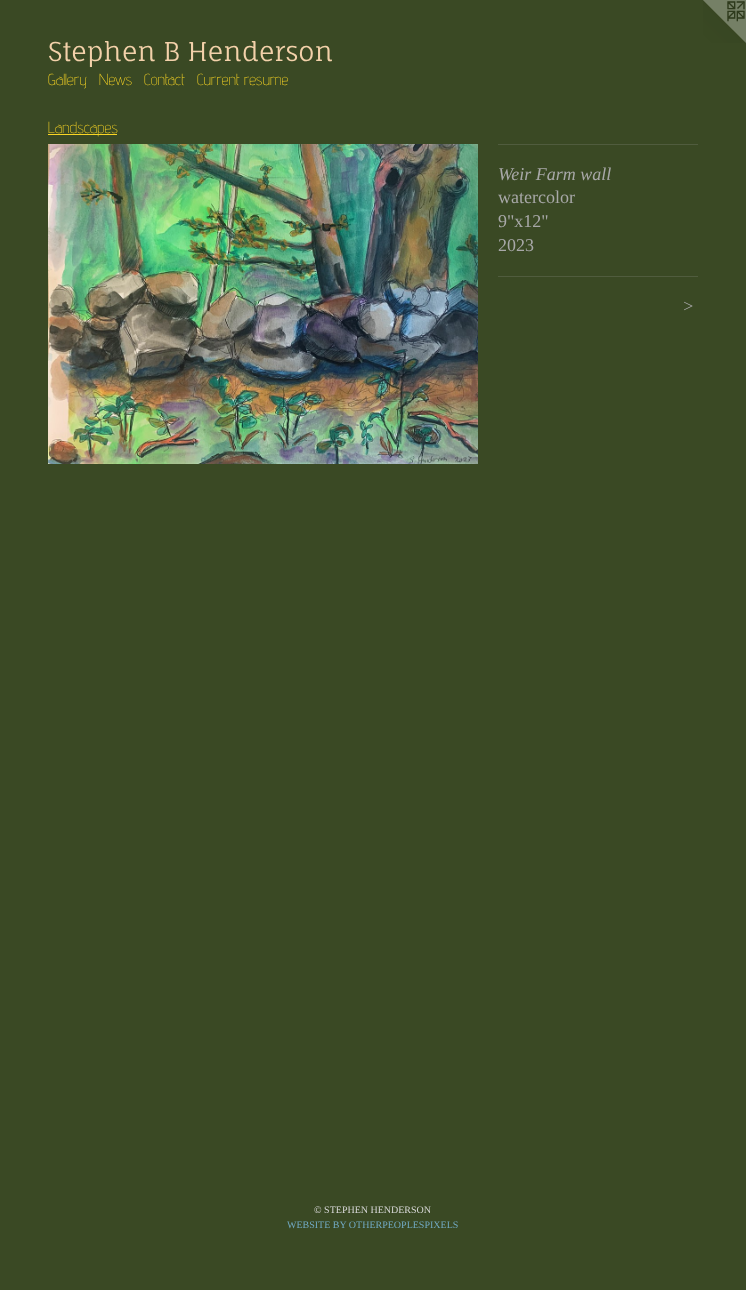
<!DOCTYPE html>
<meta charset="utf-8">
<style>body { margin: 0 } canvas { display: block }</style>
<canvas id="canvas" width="746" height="1290"></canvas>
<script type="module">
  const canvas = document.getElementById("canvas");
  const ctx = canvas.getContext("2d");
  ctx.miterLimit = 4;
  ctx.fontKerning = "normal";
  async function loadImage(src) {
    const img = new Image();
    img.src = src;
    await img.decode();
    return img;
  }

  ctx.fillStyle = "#3a4924";
  ctx.fillRect(0, 0, 746, 1290);
  ctx.drawImage(await loadImage("img1.png"), 703, 0, 43, 43);
  ctx.font = "26px Fauna One";
  ctx.fillStyle = "#f3d1aa";
  ctx.fillText("Stephen B Henderson", 48, 61);
  ctx.font = "200 16px Advent Pro";
  ctx.fillStyle = "#f9d524";
  ctx.fillText("Gallery", 48, 85);
  ctx.fillText("News", 99, 85);
  ctx.fillText("Contact", 144, 85);
  ctx.fillText("Current resume", 197, 85);
  ctx.fillRect(48, 134, 69, 1);
  ctx.fillText("Landscapes", 48, 133);
  ctx.drawImage(await loadImage("img2.png"), 48, 144, 430, 320);
  ctx.fillStyle = "#505c3e";
  ctx.fillRect(498, 144, 200, 1);
  ctx.font = "italic 18px Liberation Serif";
  ctx.fillStyle = "#a8a8a8";
  ctx.fillText("Weir Farm wall", 498, 180);
  ctx.font = "18px Liberation Serif";
  ctx.fillText("watercolor", 498, 203);
  ctx.fillText("9\"x12\"", 498, 227);
  ctx.fillText("2023", 498, 251);
  ctx.fillStyle = "#505c3e";
  ctx.fillRect(498, 276, 200, 1);
  ctx.letterSpacing = "1px";
  ctx.font = "italic 18px Liberation Serif";
  ctx.fillStyle = "#a8a8a8";
  ctx.fillText(">", 682, 312);
  ctx.letterSpacing = "0px";
  ctx.font = "10px Liberation Serif";
  ctx.fillStyle = "#d6d6d6";
  ctx.fillText("© STEPHEN HENDERSON", 314, 1213);
  ctx.fillStyle = "#70a8c0";
  ctx.fillText("WEBSITE BY OTHERPEOPLESPIXELS", 287, 1228);
</script>
